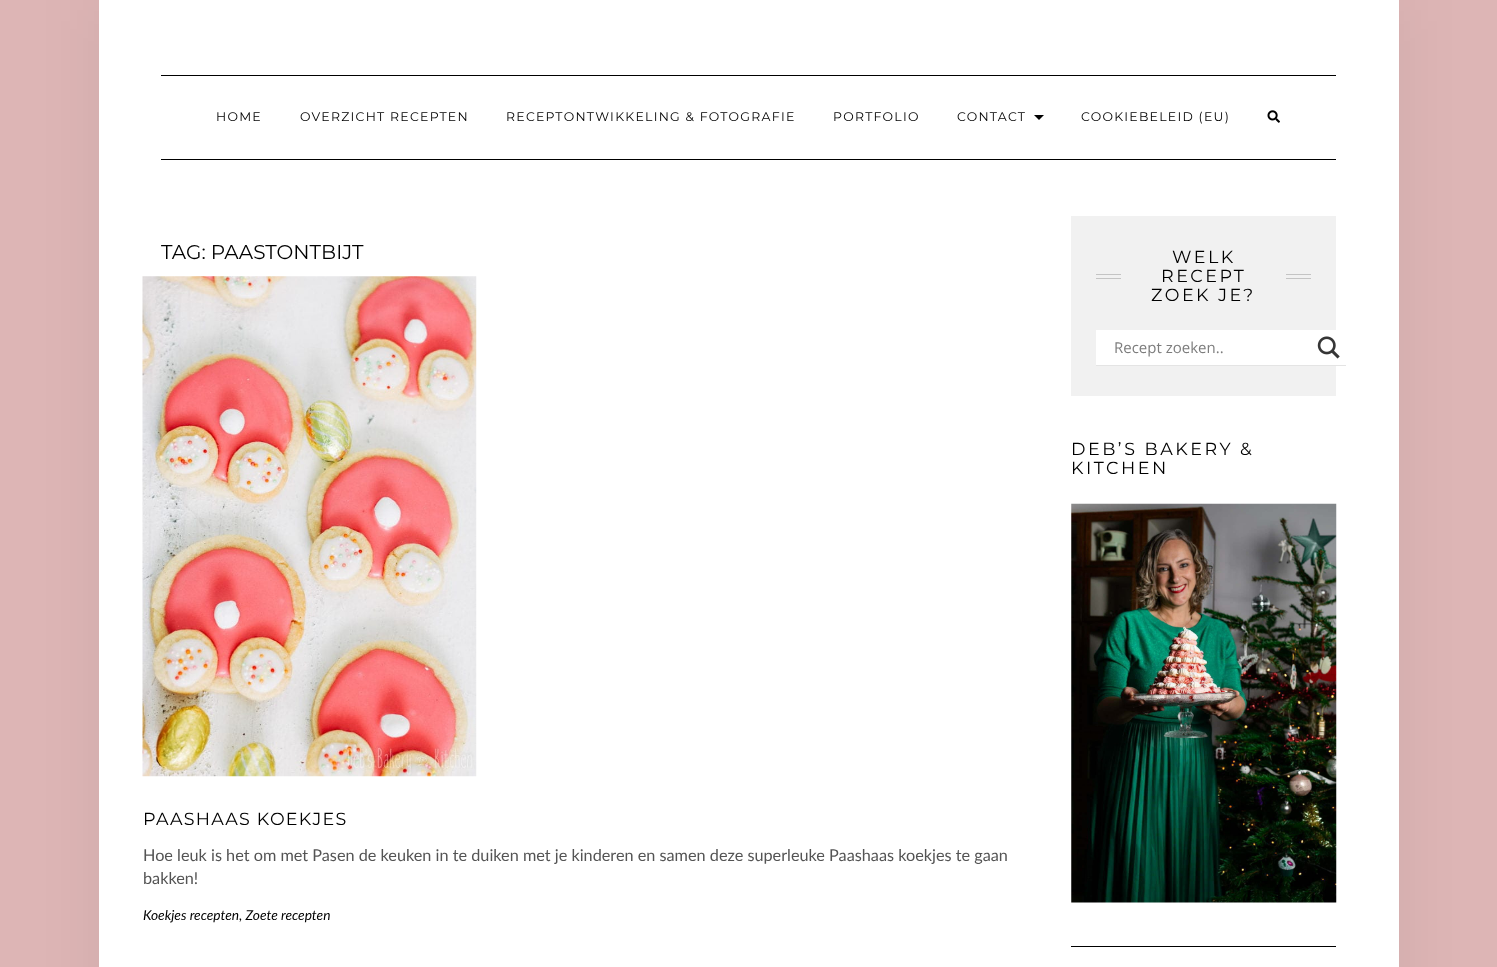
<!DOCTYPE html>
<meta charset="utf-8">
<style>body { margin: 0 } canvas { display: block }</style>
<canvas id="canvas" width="1497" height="967"></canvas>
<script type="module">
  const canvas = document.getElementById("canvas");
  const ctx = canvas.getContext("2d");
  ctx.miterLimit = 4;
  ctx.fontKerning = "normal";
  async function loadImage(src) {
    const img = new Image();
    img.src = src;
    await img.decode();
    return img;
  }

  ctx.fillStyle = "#ddb5b5";
  ctx.fillRect(0, 0, 1497, 967);
  ctx.fillStyle = "rgba(0, 0, 0, 0.06)";
  ctx.filter = "blur(31px)";
  ctx.beginPath();
  ctx.rect(99, 0, 1300, 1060);
  ctx.fill();
  ctx.filter = "none";
  ctx.fillStyle = "#ffffff";
  ctx.fillRect(99, 0, 1300, 967);
  ctx.fillStyle = "#000000";
  ctx.fillRect(161, 75, 1175, 1);
  ctx.fillRect(161, 159, 1175, 1);
  ctx.letterSpacing = "1.25px";
  ctx.font = "12.5px Montserrat";
  ctx.fillText("HOME", 216, 121);
  ctx.fillText("OVERZICHT RECEPTEN", 300, 121);
  ctx.fillText("RECEPTONTWIKKELING & FOTOGRAFIE", 506, 121);
  ctx.fillText("PORTFOLIO", 833, 121);
  ctx.fillText("CONTACT", 957, 121);
  ctx.beginPath();
  ctx.moveTo(1034, 115);
  ctx.lineTo(1044, 115);
  ctx.lineTo(1039, 120);
  ctx.closePath();
  ctx.fill();
  ctx.fillText("COOKIEBELEID (EU)", 1081, 121);
  ctx.drawImage(await loadImage("img1.png"), 1267, 110, 13, 13);
  ctx.letterSpacing = "0px";
  ctx.font = "20px Montserrat";
  ctx.fillText("TAG: PAASTONTBIJT", 161, 259);
  ctx.drawImage(await loadImage("img2.png"), 142, 276, 335, 501);
  ctx.letterSpacing = "1.25px";
  ctx.font = "17.5px Montserrat";
  ctx.fillText("PAASHAAS KOEKJES", 143, 825);
  ctx.letterSpacing = "0px";
  ctx.font = "16.25px Lato";
  ctx.fillStyle = "#545454";
  ctx.fillText("Hoe leuk is het om met Pasen de keuken in te duiken met je kinderen en samen deze superleuke Paashaas koekjes te gaan", 143, 861);
  ctx.fillText("bakken!", 143, 884);
  ctx.font = "italic 13.75px Lato";
  ctx.fillStyle = "#000000";
  ctx.fillText("Koekjes recepten, Zoete recepten", 143, 920);
  ctx.fillStyle = "#f1f1f1";
  ctx.fillRect(1071, 216, 265, 180);
  ctx.letterSpacing = "2.5px";
  ctx.font = "17.5px Montserrat";
  ctx.fillStyle = "#000000";
  ctx.fillText("WELK", 1172, 263);
  ctx.fillStyle = "#c4c4c4";
  ctx.fillRect(1096, 274, 25, 1);
  ctx.fillRect(1096, 278, 25, 1);
  ctx.fillStyle = "#000000";
  ctx.fillText("RECEPT", 1161, 282);
  ctx.fillStyle = "#c4c4c4";
  ctx.fillRect(1286, 274, 25, 1);
  ctx.fillRect(1286, 278, 25, 1);
  ctx.fillStyle = "#000000";
  ctx.fillText("ZOEK JE?", 1151, 301);
  ctx.fillStyle = "#e4e4e4";
  ctx.beginPath();
  ctx.moveTo(1096, 331);
  ctx.lineTo(1096, 366);
  ctx.lineTo(1346, 366);
  ctx.lineTo(1346, 365);
  ctx.lineTo(1096, 365);
  ctx.closePath();
  ctx.fill();
  ctx.fillStyle = "#ffffff";
  ctx.fillRect(1096, 330, 240, 35);
  ctx.letterSpacing = "0px";
  ctx.font = "15px Open Sans";
  ctx.fillStyle = "#7d7d7d";
  ctx.fillText("Recept zoeken..", 1114, 353);
  ctx.drawImage(await loadImage("img3.png"), 1317, 336, 23, 23);
  ctx.letterSpacing = "2.5px";
  ctx.font = "17.5px Montserrat";
  ctx.fillStyle = "#000000";
  ctx.fillText("DEB’S BAKERY &", 1071, 455);
  ctx.fillText("KITCHEN", 1071, 474);
  ctx.drawImage(await loadImage("img4.png"), 1071, 503, 266, 400);
  ctx.fillRect(1071, 946, 265, 1);
</script>
